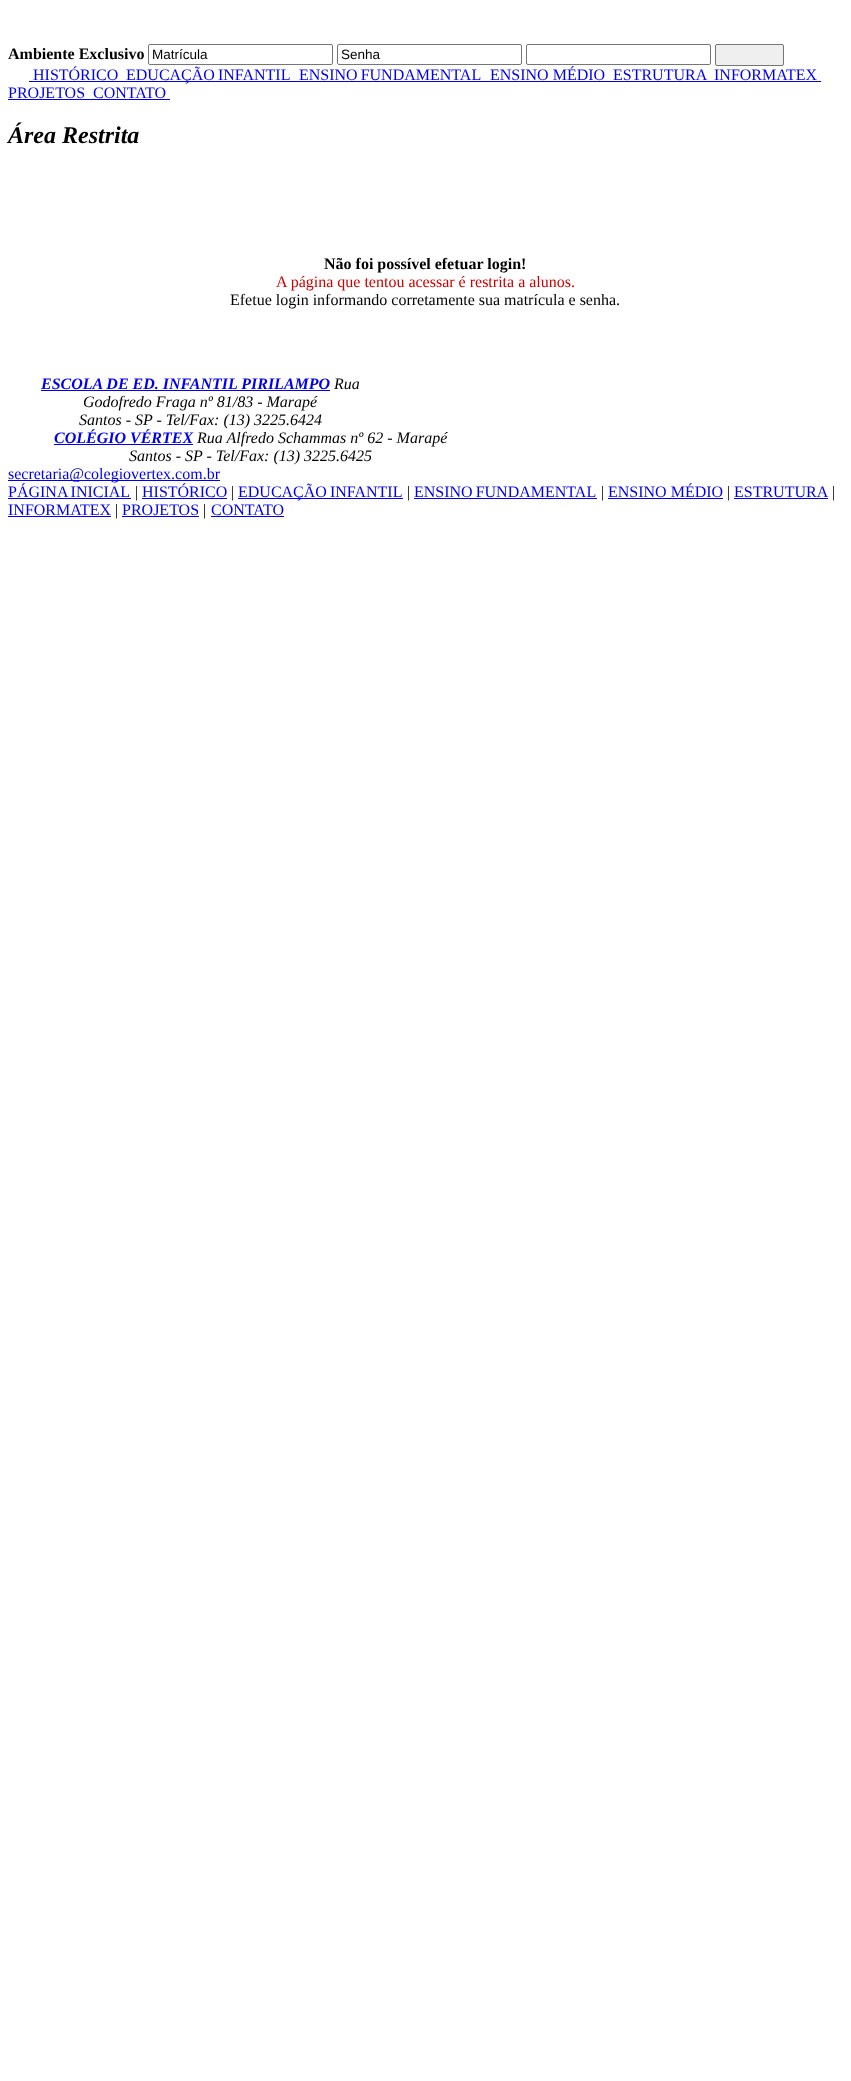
<!DOCTYPE html>
<meta charset="utf-8">
<style>body { margin: 0 } canvas { display: block }</style>
<canvas id="canvas" width="851" height="2081"></canvas>
<script type="module">
  const canvas = document.getElementById("canvas");
  const ctx = canvas.getContext("2d");
  ctx.miterLimit = 4;
  ctx.fontKerning = "normal";

  ctx.fillStyle = "#ffffff";
  ctx.fillRect(0, 0, 851, 2081);
  ctx.font = "bold 16px Liberation Serif";
  ctx.fillStyle = "#000000";
  ctx.fillText("Ambiente Exclusivo", 8, 59);
  ctx.beginPath();
  ctx.roundRect(148.5, 44.5, 184, 20, 1.5);
  ctx.strokeStyle = "#767676";
  ctx.stroke();
  ctx.font = "13.5px Liberation Sans";
  ctx.fillText("Matrícula", 152, 59);
  ctx.beginPath();
  ctx.roundRect(337.5, 44.5, 184, 20, 1.5);
  ctx.stroke();
  ctx.fillText("Senha", 341, 59);
  ctx.beginPath();
  ctx.roundRect(526.5, 44.5, 184, 20, 1.5);
  ctx.stroke();
  ctx.fillStyle = "#efefef";
  ctx.beginPath();
  ctx.roundRect(715.5, 44.5, 68, 21, 1.5);
  ctx.fill();
  ctx.stroke();
  ctx.font = "16px Liberation Serif";
  ctx.fillStyle = "#0000ee";
  ctx.fillText("HISTÓRICO", 33, 80);
  ctx.fillRect(29, 81, 792, 1);
  ctx.wordSpacing = "-1px";
  ctx.fillText("EDUCAÇÃO INFANTIL", 126, 80);
  ctx.fillText("ENSINO FUNDAMENTAL", 299, 80);
  ctx.wordSpacing = "0px";
  ctx.fillText("ENSINO MÉDIO", 490, 80);
  ctx.fillText("ESTRUTURA", 613, 80);
  ctx.fillText("INFORMATEX", 714, 80);
  ctx.fillText("PROJETOS", 8, 98);
  ctx.fillRect(8, 99, 162, 1);
  ctx.fillText("CONTATO", 93, 98);
  ctx.font = "italic bold 24px Liberation Serif";
  ctx.fillStyle = "#000000";
  ctx.fillText("Área Restrita", 8, 143);
  ctx.font = "bold 16px Liberation Serif";
  ctx.fillText("Não foi possível efetuar login!", 324, 269);
  ctx.font = "16px Liberation Serif";
  ctx.fillStyle = "#cc0000";
  ctx.fillText("A página que tentou acessar é restrita a alunos.", 276, 287);
  ctx.fillStyle = "#000000";
  ctx.fillText("Efetue login informando corretamente sua matrícula e senha.", 230, 305);
  ctx.font = "italic bold 16px Liberation Serif";
  ctx.fillStyle = "#0000ee";
  ctx.fillText("ESCOLA DE ED. INFANTIL PIRILAMPO", 41, 389);
  ctx.fillRect(41, 390, 289, 1);
  ctx.font = "italic 16px Liberation Serif";
  ctx.fillStyle = "#000000";
  ctx.fillText("Rua", 334, 389);
  ctx.fillText("Godofredo Fraga nº 81/83 - Marapé", 83, 407);
  ctx.fillText("Santos - SP - Tel/Fax: (13) 3225.6424", 79, 425);
  ctx.font = "italic bold 16px Liberation Serif";
  ctx.fillStyle = "#0000ee";
  ctx.fillText("COLÉGIO VÉRTEX", 54, 443);
  ctx.fillRect(54, 444, 139, 1);
  ctx.font = "italic 16px Liberation Serif";
  ctx.fillStyle = "#000000";
  ctx.fillText("Rua Alfredo Schammas nº 62 - Marapé", 197, 443);
  ctx.fillText("Santos - SP - Tel/Fax: (13) 3225.6425", 129, 461);
  ctx.fillStyle = "#0000ee";
  ctx.fillRect(8, 480, 212, 1);
  ctx.font = "16px Liberation Serif";
  ctx.fillText("secretaria@colegiovertex.com.br", 8, 479);
  ctx.wordSpacing = "-1px";
  ctx.fillText("PÁGINA INICIAL", 8, 497);
  ctx.fillRect(8, 498, 123, 1);
  ctx.wordSpacing = "0px";
  ctx.fillStyle = "#000000";
  ctx.fillText("|", 135, 497);
  ctx.fillStyle = "#0000ee";
  ctx.fillText("HISTÓRICO", 142, 497);
  ctx.fillRect(142, 498, 85, 1);
  ctx.fillStyle = "#000000";
  ctx.fillText("|", 231, 497);
  ctx.fillStyle = "#0000ee";
  ctx.fillRect(238, 498, 165, 1);
  ctx.wordSpacing = "-1px";
  ctx.fillText("EDUCAÇÃO INFANTIL", 238, 497);
  ctx.wordSpacing = "0px";
  ctx.fillStyle = "#000000";
  ctx.fillText("|", 407, 497);
  ctx.wordSpacing = "-1px";
  ctx.fillStyle = "#0000ee";
  ctx.fillText("ENSINO FUNDAMENTAL", 414, 497);
  ctx.fillRect(414, 498, 183, 1);
  ctx.wordSpacing = "0px";
  ctx.fillStyle = "#000000";
  ctx.fillText("|", 601, 497);
  ctx.fillStyle = "#0000ee";
  ctx.fillText("ENSINO MÉDIO", 608, 497);
  ctx.fillRect(608, 498, 115, 1);
  ctx.fillStyle = "#000000";
  ctx.fillText("|", 727, 497);
  ctx.fillStyle = "#0000ee";
  ctx.fillText("ESTRUTURA", 734, 497);
  ctx.fillRect(734, 498, 94, 1);
  ctx.fillStyle = "#000000";
  ctx.fillText("|", 832, 497);
  ctx.fillStyle = "#0000ee";
  ctx.fillText("INFORMATEX", 8, 515);
  ctx.fillRect(8, 516, 103, 1);
  ctx.fillStyle = "#000000";
  ctx.fillText("|", 115, 515);
  ctx.fillStyle = "#0000ee";
  ctx.fillText("PROJETOS", 122, 515);
  ctx.fillRect(122, 516, 77, 1);
  ctx.fillStyle = "#000000";
  ctx.fillText("|", 203, 515);
  ctx.fillStyle = "#0000ee";
  ctx.fillText("CONTATO", 211, 515);
  ctx.fillRect(211, 516, 73, 1);
</script>
